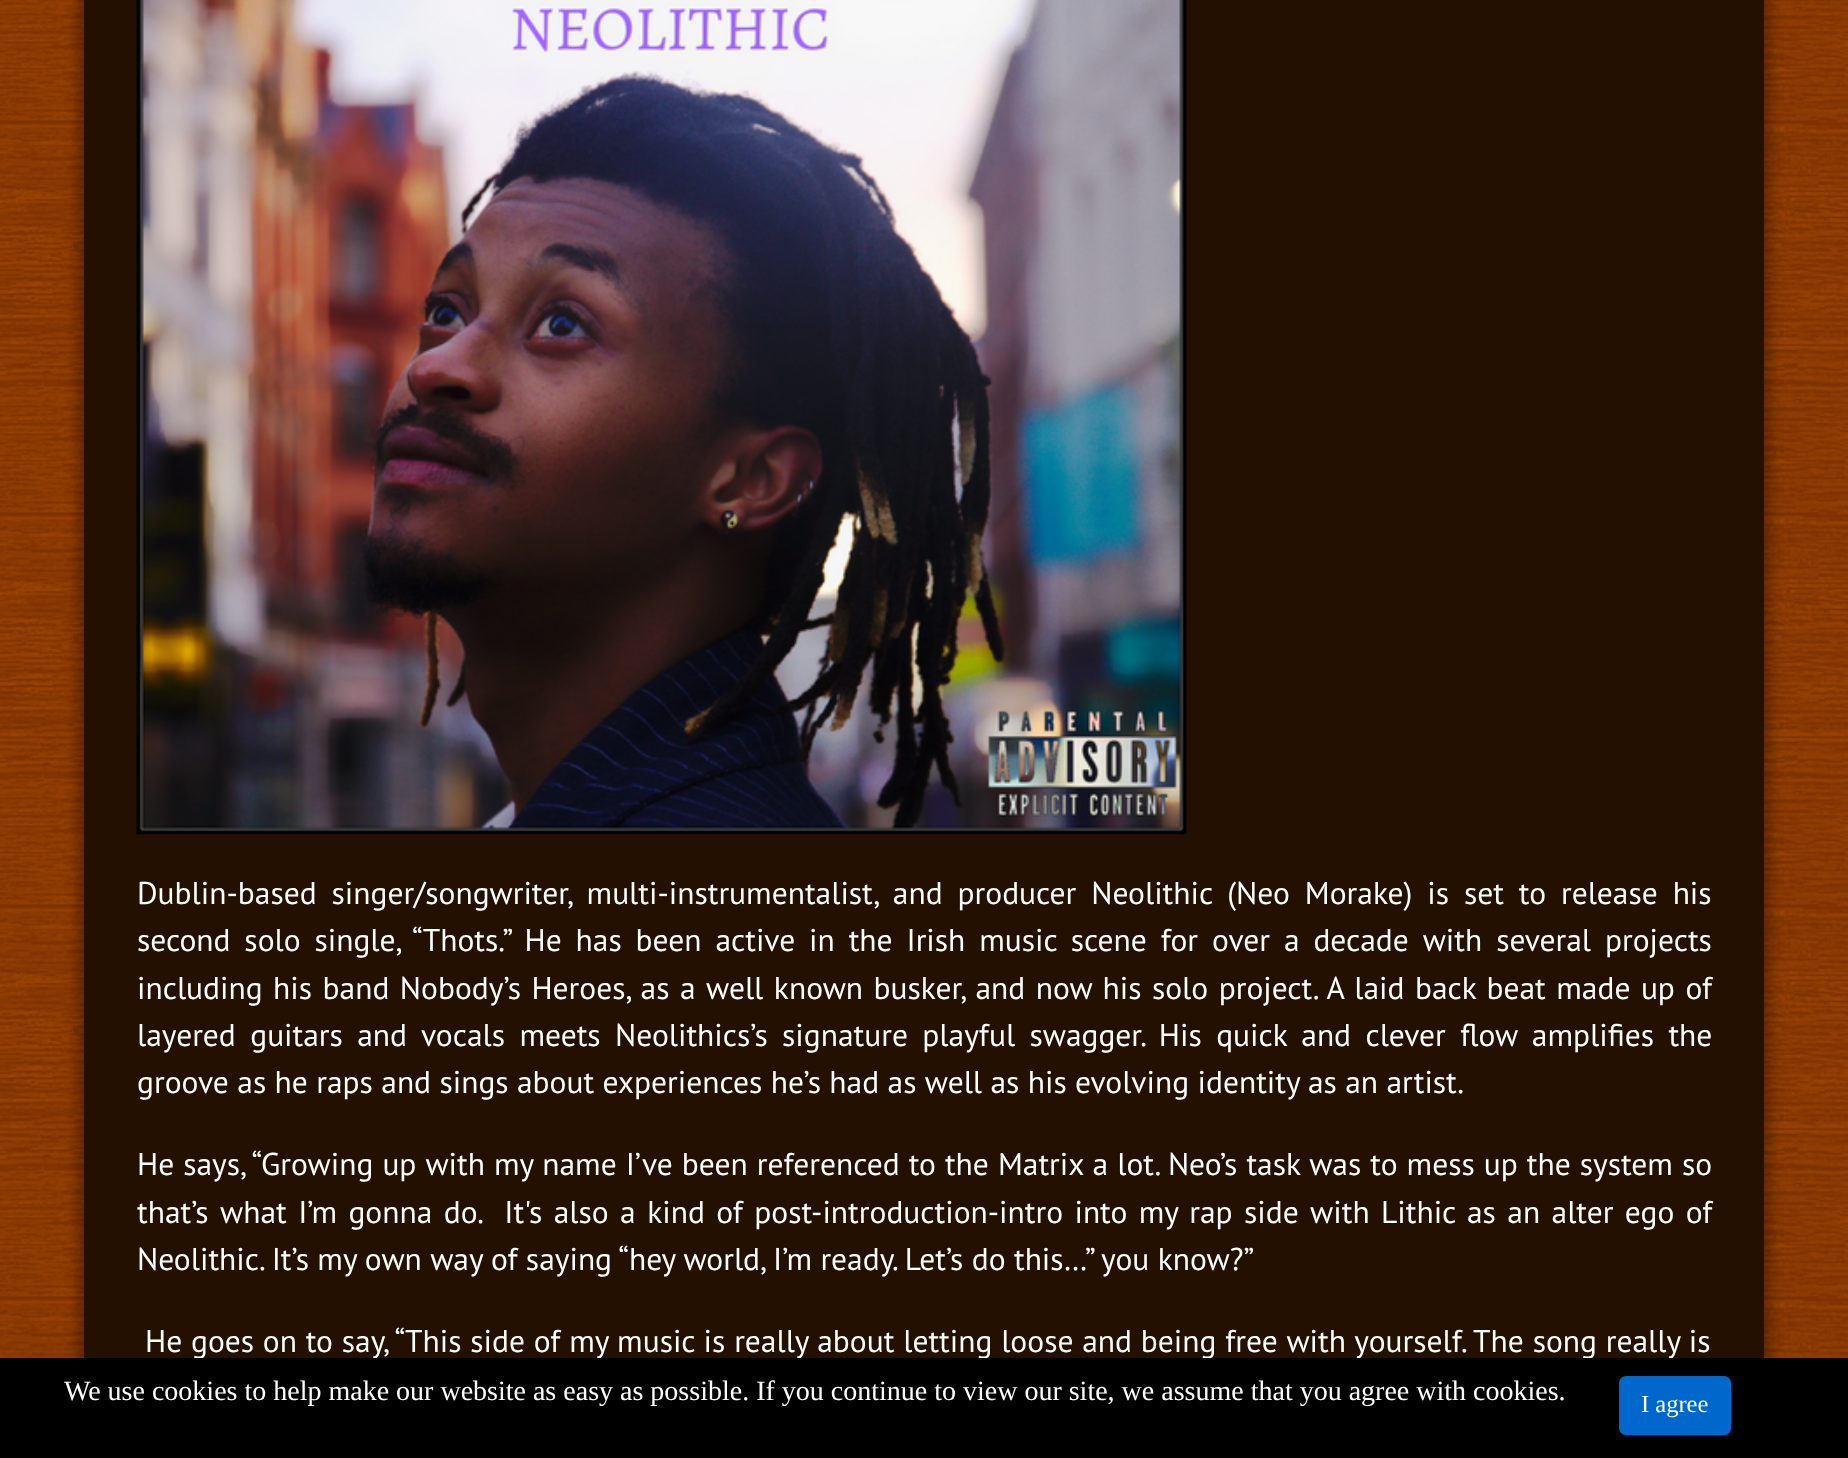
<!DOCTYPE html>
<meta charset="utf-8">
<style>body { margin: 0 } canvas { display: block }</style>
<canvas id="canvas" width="1848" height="1458"></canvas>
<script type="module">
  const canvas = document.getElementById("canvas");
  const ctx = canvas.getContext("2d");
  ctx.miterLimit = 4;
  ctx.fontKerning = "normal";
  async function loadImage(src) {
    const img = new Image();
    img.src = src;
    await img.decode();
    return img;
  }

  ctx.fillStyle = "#974302";
  ctx.fillRect(0, 0, 1848, 1458);
  ctx.drawImage(await loadImage("img1.png"), 0, 0, 1848, 1358);
  ctx.fillStyle = "rgba(0, 0, 0, 0.3)";
  ctx.filter = "blur(6px)";
  ctx.beginPath();
  ctx.rect(77, -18, 1694, 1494);
  ctx.fill();
  ctx.filter = "none";
  ctx.fillStyle = "#231000";
  ctx.fillRect(84, 0, 1680, 1358);
  ctx.drawImage(await loadImage("img2.png"), 136, 0, 1051, 835);
  ctx.wordSpacing = "6.5px";
  ctx.font = "31.5px PT Sans";
  ctx.fillStyle = "#ffffff";
  ctx.fillText("Dublin-based singer/songwriter, multi-instrumentalist, and producer Neolithic (Neo Morake) is set to release his", 137, 904);
  ctx.wordSpacing = "5.5px";
  ctx.fillText("second solo single, “Thots.” He has been active in the Irish music scene for over a decade with several projects", 137, 951);
  ctx.wordSpacing = "2.1px";
  ctx.fillText("including his band Nobody’s Heroes, as a well known busker, and now his solo project. A laid back beat made up of", 137, 999);
  ctx.wordSpacing = "6px";
  ctx.fillText("layered guitars and vocals meets Neolithics’s signature playful swagger. His quick and clever flow amplifies the", 137, 1046);
  ctx.wordSpacing = "0px";
  ctx.fillText("groove as he raps and sings about experiences he’s had as well as his evolving identity as an artist.", 137, 1093);
  ctx.wordSpacing = "0.65px";
  ctx.fillText("He says, “Growing up with my name I’ve been referenced to the Matrix a lot. Neo’s task was to mess up the system so", 137, 1175);
  ctx.wordSpacing = "3px";
  ctx.fillText("that’s what I’m gonna do.  It's also a kind of post-introduction-intro into my rap side with Lithic as an alter ego of", 137, 1223);
  ctx.wordSpacing = "0px";
  ctx.fillText("Neolithic. It’s my own way of saying “hey world, I’m ready. Let’s do this…” you know?”", 137, 1270);
  ctx.wordSpacing = "0.4px";
  ctx.fillText("He goes on to say, “This side of my music is really about letting loose and being free with yourself. The song really is", 145, 1352);
  ctx.fillStyle = "#000000";
  ctx.fillRect(0, 1358, 1848, 100);
  ctx.wordSpacing = "0px";
  ctx.font = "28px Liberation Serif";
  ctx.fillStyle = "#ffffff";
  ctx.fillText("We use cookies to help make our website as easy as possible. If you continue to view our site, we assume that you agree with cookies.", 64, 1400);
  ctx.fillStyle = "#0067cc";
  ctx.beginPath();
  ctx.roundRect(1619, 1376, 112, 59, 7);
  ctx.fill();
  ctx.font = "24.5px Liberation Serif";
  ctx.fillStyle = "#ffffff";
  ctx.fillText("I agree", 1641, 1412);
</script>
